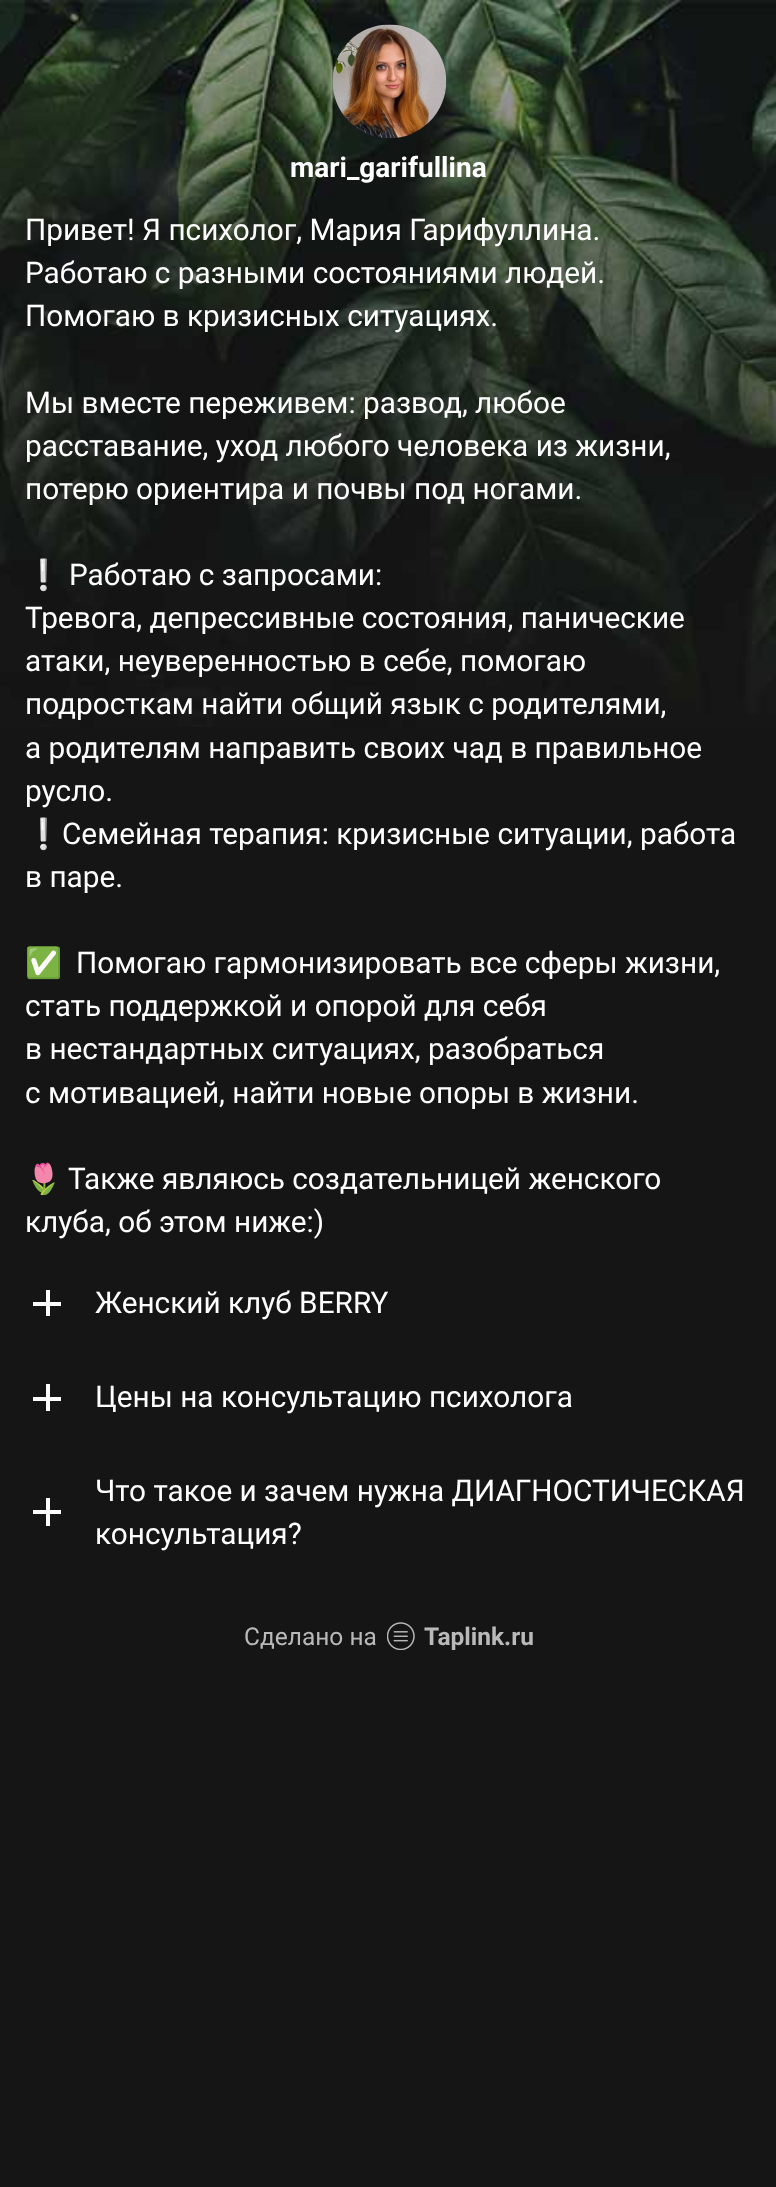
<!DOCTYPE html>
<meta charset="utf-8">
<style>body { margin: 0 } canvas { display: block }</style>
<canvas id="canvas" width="776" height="2187"></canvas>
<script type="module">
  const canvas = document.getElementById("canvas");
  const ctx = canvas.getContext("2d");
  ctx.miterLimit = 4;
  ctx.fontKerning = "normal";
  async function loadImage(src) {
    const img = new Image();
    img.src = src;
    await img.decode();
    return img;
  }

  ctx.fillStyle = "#151515";
  ctx.fillRect(0, 0, 776, 2187);
  ctx.drawImage(await loadImage("img1.png"), 0, 0, 776, 727);
  ctx.drawImage(await loadImage("img2.png"), 332, 24, 115, 114);
  ctx.font = "bold 28px Roboto";
  ctx.fillStyle = "#ffffff";
  ctx.fillText("mari_garifullina", 290, 177);
  ctx.font = "29.75px Roboto";
  ctx.fillText("Привет! Я психолог, Мария Гарифуллина.", 25, 240);
  ctx.fillText("Работаю с разными состояниями людей.", 25, 283);
  ctx.fillText("Помогаю в кризисных ситуациях.", 25, 326);
  ctx.fillText("Мы вместе переживем: развод, любое", 25, 413);
  ctx.fillText("расставание, уход любого человека из жизни,", 25, 456);
  ctx.fillText("потерю ориентира и почвы под ногами.", 25, 499);
  ctx.font = "29.75px Noto Color Emoji";
  ctx.fillText("❕", 25, 585);
  ctx.font = "29.75px Roboto";
  ctx.fillText("Работаю с запросами:", 69, 585);
  ctx.fillText("Тревога, депрессивные состояния, панические", 25, 628);
  ctx.fillText("атаки, неуверенностью в себе, помогаю", 25, 671);
  ctx.fillText("подросткам найти общий язык с родителями,", 25, 714);
  ctx.fillText("а родителям направить своих чад в правильное", 25, 758);
  ctx.fillText("русло.", 25, 801);
  ctx.font = "29.75px Noto Color Emoji";
  ctx.fillText("❕", 25, 844);
  ctx.font = "29.75px Roboto";
  ctx.fillText("Семейная терапия: кризисные ситуации, работа", 62, 844);
  ctx.fillText("в паре.", 25, 887);
  ctx.font = "29.75px Noto Color Emoji";
  ctx.fillText("✅", 25, 973);
  ctx.font = "29.75px Roboto";
  ctx.fillText("Помогаю гармонизировать все сферы жизни,", 76, 973);
  ctx.fillText("стать поддержкой и опорой для себя", 25, 1016);
  ctx.fillText("в нестандартных ситуациях, разобраться", 25, 1059);
  ctx.fillText("с мотивацией, найти новые опоры в жизни.", 25, 1103);
  ctx.font = "29.75px Noto Color Emoji";
  ctx.fillText("🌷", 25, 1189);
  ctx.font = "29.75px Roboto";
  ctx.fillText("Также являюсь создательницей женского", 68, 1189);
  ctx.fillText("клуба, об этом ниже:)", 25, 1232);
  ctx.fillRect(46, 1290, 4, 26);
  ctx.fillRect(33, 1302, 28, 4);
  ctx.fillText("Женский клуб BERRY", 95, 1313);
  ctx.fillRect(46, 1384, 4, 27);
  ctx.fillRect(33, 1397, 28, 4);
  ctx.fillText("Цены на консультацию психолога", 95, 1407);
  ctx.fillRect(46, 1498, 4, 28);
  ctx.fillRect(33, 1510, 28, 4);
  ctx.fillText("Что такое и зачем нужна ДИАГНОСТИЧЕСКАЯ", 95, 1501);
  ctx.fillText("консультация?", 95, 1544);
  ctx.font = "24.5px Roboto";
  ctx.fillStyle = "#b9b9b9";
  ctx.fillText("Сделано на", 244, 1645);
  ctx.drawImage(await loadImage("img3.png"), 387, 1622, 28, 28);
  ctx.font = "bold 24.5px Roboto";
  ctx.fillText("Taplink.ru", 424, 1645);
</script>
